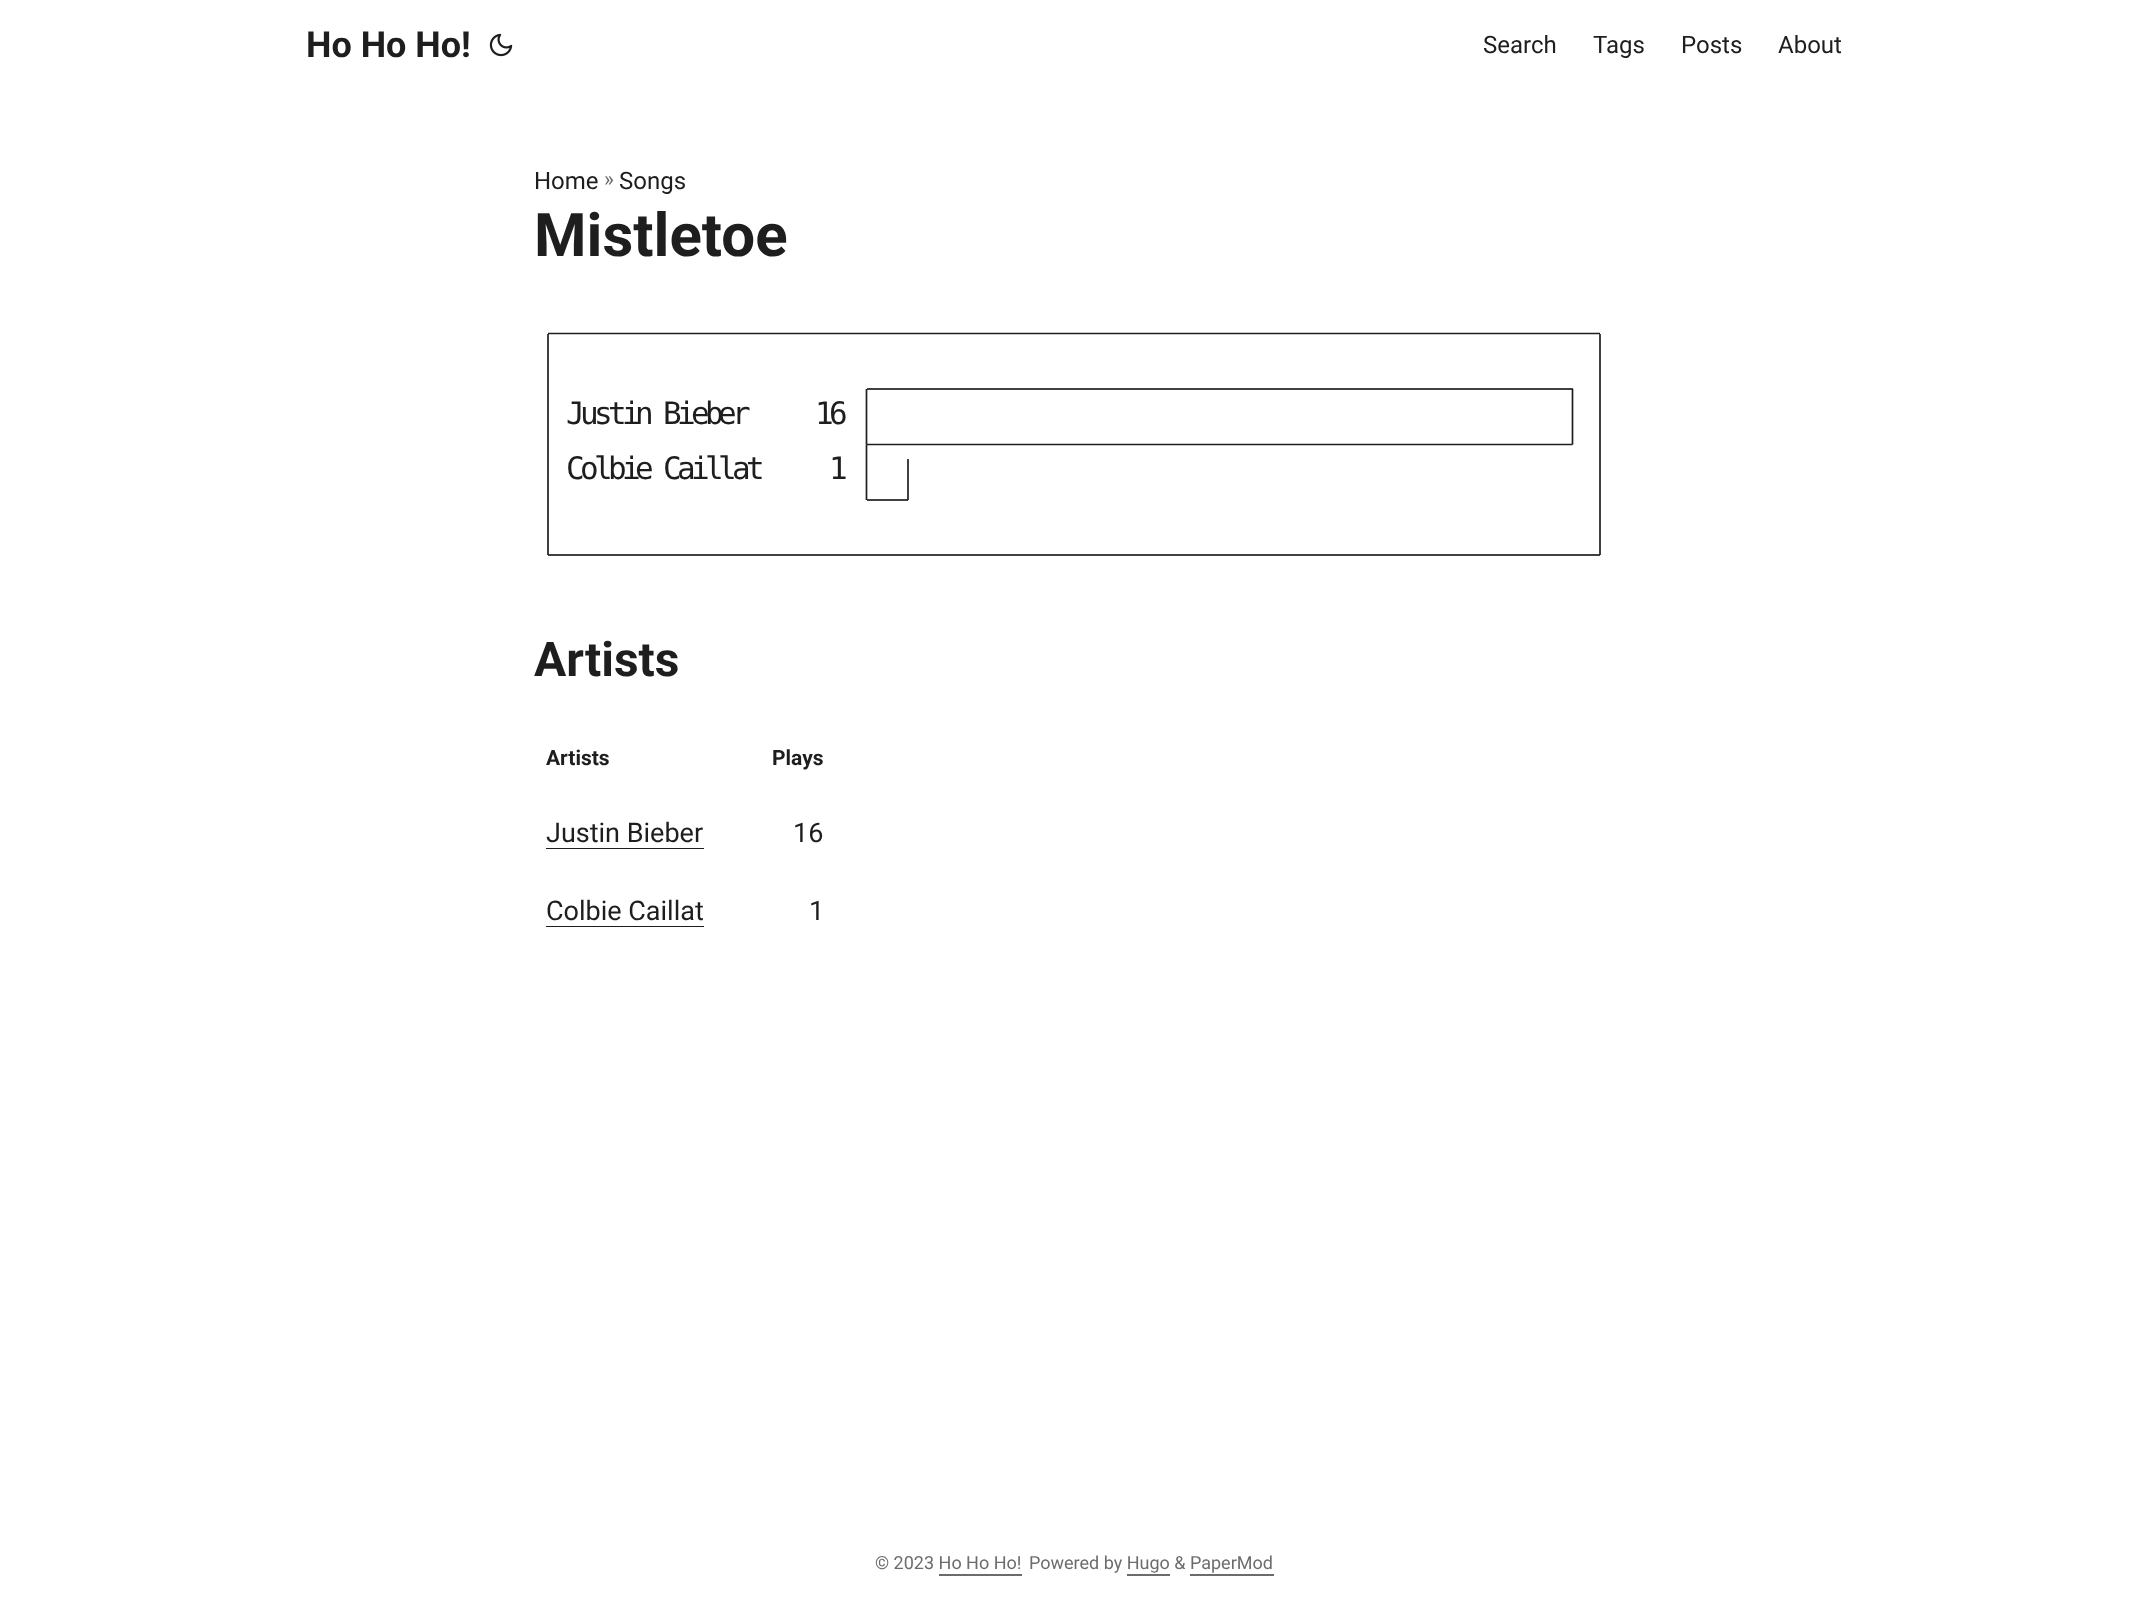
<!DOCTYPE html>
<meta charset="utf-8">
<style>body { margin: 0 } canvas { display: block }</style>
<canvas id="canvas" width="2147" height="1608"></canvas>
<script type="module">
  const canvas = document.getElementById("canvas");
  const ctx = canvas.getContext("2d");
  ctx.miterLimit = 4;
  ctx.fontKerning = "normal";
  async function loadImage(src) {
    const img = new Image();
    img.src = src;
    await img.decode();
    return img;
  }

  ctx.fillStyle = "#ffffff";
  ctx.fillRect(0, 0, 2147, 1608);
  ctx.fillStyle = "#414141";
  ctx.fillRect(907, 459, 2, 41);
  ctx.font = "bold 36px Roboto";
  ctx.fillStyle = "#1e1e1e";
  ctx.fillText("Ho Ho Ho!", 306, 57);
  ctx.drawImage(await loadImage("img1.png"), 489, 33, 24, 24);
  ctx.font = "24px Roboto";
  ctx.fillText("Search", 1483, 53);
  ctx.fillText("Tags", 1593, 53);
  ctx.fillText("Posts", 1681, 53);
  ctx.fillText("About", 1778, 53);
  ctx.fillText("Home", 534, 189);
  ctx.font = "21px Roboto";
  ctx.fillStyle = "#6c6c6c";
  ctx.fillText("»", 604, 186);
  ctx.font = "24px Roboto";
  ctx.fillStyle = "#1e1e1e";
  ctx.fillText("Songs", 619, 189);
  ctx.font = "bold 60px Roboto";
  ctx.fillText("Mistletoe", 534, 256);
  ctx.font = "31px DejaVu Sans Mono";
  ctx.fillText("J", 566, 424);
  ctx.fillText("u", 580, 424);
  ctx.fillText("s", 594, 424);
  ctx.fillText("t", 608, 424);
  ctx.fillText("i", 622, 424);
  ctx.beginPath();
  ctx.moveTo(548, 333.5);
  ctx.lineTo(1600, 333.5);
  ctx.strokeStyle = "#1f1f1f";
  ctx.lineWidth = 1.7;
  ctx.stroke();
  ctx.fillText("n", 635, 424);
  ctx.fillText("B", 663, 424);
  ctx.fillText("i", 677, 424);
  ctx.fillText("e", 691, 424);
  ctx.fillText("b", 705, 424);
  ctx.fillText("e", 718, 424);
  ctx.fillText("r", 732, 424);
  ctx.fillText("1", 815, 424);
  ctx.fillText("6", 829, 424);
  ctx.fillStyle = "#414141";
  ctx.fillRect(867, 388, 706, 2);
  ctx.beginPath();
  ctx.moveTo(866.5, 444.5);
  ctx.lineTo(1572.5, 444.5);
  ctx.stroke();
  ctx.beginPath();
  ctx.moveTo(866.5, 389);
  ctx.lineTo(866.5, 444.5);
  ctx.stroke();
  ctx.beginPath();
  ctx.moveTo(1572.5, 389);
  ctx.lineTo(1572.5, 444.5);
  ctx.stroke();
  ctx.fillStyle = "#1e1e1e";
  ctx.fillText("C", 566, 479);
  ctx.fillStyle = "#414141";
  ctx.fillRect(548, 554, 1052, 2);
  ctx.fillStyle = "rgba(31, 31, 31, 0.85)";
  ctx.fillRect(547, 334, 2, 221);
  ctx.fillStyle = "#1e1e1e";
  ctx.fillText("o", 580, 479);
  ctx.fillText("l", 594, 479);
  ctx.fillText("b", 608, 479);
  ctx.fillText("i", 622, 479);
  ctx.fillText("e", 635, 479);
  ctx.fillText("C", 663, 479);
  ctx.fillText("a", 677, 479);
  ctx.fillText("i", 691, 479);
  ctx.fillText("l", 705, 479);
  ctx.fillText("l", 718, 479);
  ctx.fillText("a", 732, 479);
  ctx.fillText("t", 746, 479);
  ctx.fillText("1", 829, 479);
  ctx.fillStyle = "#414141";
  ctx.fillRect(867, 499, 41, 2);
  ctx.fillStyle = "#242424";
  ctx.fillRect(907, 499, 1, 1);
  ctx.beginPath();
  ctx.moveTo(866.5, 444.5);
  ctx.lineTo(866.5, 500);
  ctx.stroke();
  ctx.fillStyle = "rgba(31, 31, 31, 0.85)";
  ctx.fillRect(1599, 334, 2, 221);
  ctx.font = "bold 48px Roboto";
  ctx.fillStyle = "#1e1e1e";
  ctx.fillText("Artists", 534, 676);
  ctx.font = "bold 21px Roboto";
  ctx.fillText("Artists", 546, 765);
  ctx.fillText("Plays", 772, 765);
  ctx.font = "27px Roboto";
  ctx.fillText("Justin Bieber", 546, 842);
  ctx.beginPath();
  ctx.moveTo(546, 848);
  ctx.lineTo(546, 849);
  ctx.lineTo(704, 849);
  ctx.lineTo(704, 818);
  ctx.lineTo(704, 848);
  ctx.closePath();
  ctx.fill();
  ctx.fillText("16", 793, 842);
  ctx.fillText("Colbie Caillat", 546, 920);
  ctx.beginPath();
  ctx.moveTo(546, 926);
  ctx.lineTo(546, 927);
  ctx.lineTo(704, 927);
  ctx.lineTo(704, 896);
  ctx.lineTo(704, 926);
  ctx.closePath();
  ctx.fill();
  ctx.fillText("1", 809, 920);
  ctx.font = "18px Roboto";
  ctx.fillStyle = "#6c6c6c";
  ctx.fillText("© 2023 Ho Ho Ho!", 875, 1569);
  ctx.fillRect(939, 1574, 83, 2);
  ctx.fillText("Powered by Hugo & PaperMod", 1029, 1569);
  ctx.fillRect(1127, 1574, 43, 2);
  ctx.fillRect(1190, 1574, 84, 2);
</script>
